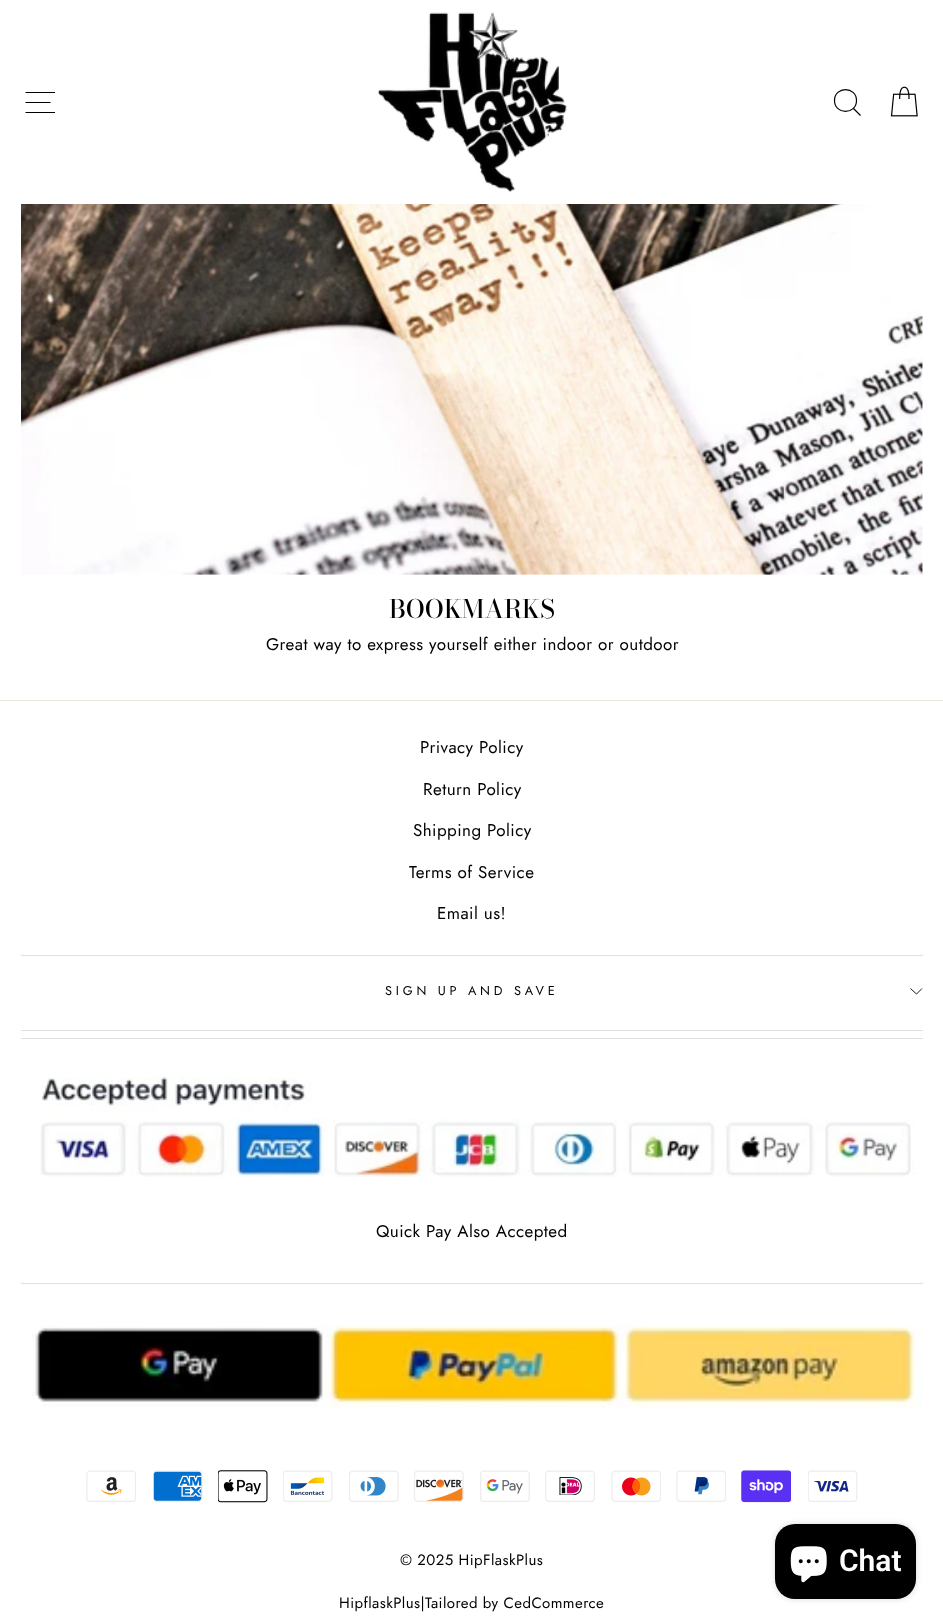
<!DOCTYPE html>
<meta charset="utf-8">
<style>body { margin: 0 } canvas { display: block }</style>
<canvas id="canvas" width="943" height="1624"></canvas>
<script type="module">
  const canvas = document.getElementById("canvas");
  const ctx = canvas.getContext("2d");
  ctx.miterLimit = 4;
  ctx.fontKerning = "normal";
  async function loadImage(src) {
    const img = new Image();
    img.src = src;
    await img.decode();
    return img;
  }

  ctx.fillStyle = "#ffffff";
  ctx.fillRect(0, 0, 943, 1624);
  ctx.drawImage(await loadImage("img3.png"), 21, 204, 902, 371);
  ctx.fillStyle = "rgba(0, 0, 0, 0.2)";
  ctx.filter = "blur(0.5px)";
  ctx.beginPath();
  ctx.rect(0, 0, 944, 204);
  ctx.fill();
  ctx.filter = "none";
  ctx.fillStyle = "#ffffff";
  ctx.fillRect(0, 0, 943, 204);
  ctx.beginPath();
  ctx.moveTo(25.5, 92.5);
  ctx.lineTo(55, 92.5);
  ctx.moveTo(25.5, 102.5);
  ctx.lineTo(50.5, 102.5);
  ctx.moveTo(25.5, 112.5);
  ctx.lineTo(55, 112.5);
  ctx.strokeStyle = "#000000";
  ctx.lineWidth = 1.2;
  ctx.stroke();
  ctx.drawImage(await loadImage("img1.png"), 378, 12, 189, 180);
  ctx.beginPath();
  ctx.moveTo(856.5, 100.5);
  ctx.bezierCurveTo(856.5, 115, 834.5, 115, 834.5, 100.5);
  ctx.bezierCurveTo(834.5, 86, 856.5, 86, 856.5, 100.5);
  ctx.closePath();
  ctx.moveTo(860.5, 115.5);
  ctx.lineTo(853.5, 108.5);
  ctx.stroke();
  ctx.drawImage(await loadImage("img2.png"), 890, 86, 28, 31);
  ctx.font = "500 25.5px Bodoni Moda";
  ctx.fillStyle = "#000000";
  ctx.fillText("BOOKMARKS", 389, 618);
  ctx.letterSpacing = "0.43px";
  ctx.font = "17px Jost";
  ctx.fillText("Great way to express yourself either indoor or outdoor", 266, 650);
  ctx.fillStyle = "#e8e8e1";
  ctx.fillRect(0, 700, 943, 1);
  ctx.fillStyle = "#000000";
  ctx.fillText("Privacy Policy", 420, 753);
  ctx.fillText("Return Policy", 423, 795);
  ctx.fillText("Shipping Policy", 413, 836);
  ctx.fillText("Terms of Service", 409, 878);
  ctx.fillText("Email us!", 437, 919);
  ctx.fillStyle = "#e0e0e0";
  ctx.fillRect(21, 955, 902, 1);
  ctx.letterSpacing = "3.8px";
  ctx.font = "12.75px Jost";
  ctx.fillStyle = "#000000";
  ctx.fillText("SIGN UP AND SAVE", 385, 995);
  ctx.beginPath();
  ctx.moveTo(910.5, 988.5);
  ctx.lineTo(916.5, 994);
  ctx.lineTo(922, 988.5);
  ctx.lineWidth = 0.9;
  ctx.stroke();
  ctx.fillStyle = "#e0e0e0";
  ctx.fillRect(21, 1030, 902, 1);
  ctx.fillRect(21, 1038, 902, 1);
  ctx.drawImage(await loadImage("img4.png"), 40, 1077, 875, 100);
  ctx.letterSpacing = "0.43px";
  ctx.font = "17px Jost";
  ctx.fillStyle = "#000000";
  ctx.fillText("Quick Pay Also Accepted", 376, 1237);
  ctx.fillStyle = "#e0e0e0";
  ctx.fillRect(21, 1283, 902, 1);
  ctx.drawImage(await loadImage("img5.png"), 32, 1325, 890, 84);
  ctx.drawImage(await loadImage("img6.png"), 86, 1470, 50, 32);
  ctx.drawImage(await loadImage("img7.png"), 153, 1470, 50, 32);
  ctx.drawImage(await loadImage("img8.png"), 218, 1470, 50, 33);
  ctx.drawImage(await loadImage("img9.png"), 283, 1470, 50, 32);
  ctx.drawImage(await loadImage("img10.png"), 349, 1470, 50, 32);
  ctx.drawImage(await loadImage("img11.png"), 414, 1470, 50, 32);
  ctx.drawImage(await loadImage("img12.png"), 480, 1470, 50, 32);
  ctx.drawImage(await loadImage("img13.png"), 545, 1470, 50, 32);
  ctx.drawImage(await loadImage("img14.png"), 611, 1470, 50, 32);
  ctx.drawImage(await loadImage("img15.png"), 676, 1470, 50, 32);
  ctx.drawImage(await loadImage("img16.png"), 741, 1470, 50, 33);
  ctx.drawImage(await loadImage("img17.png"), 808, 1470, 50, 32);
  ctx.font = "15px Jost";
  ctx.fillStyle = "#000000";
  ctx.fillText("© 2025 HipFlaskPlus", 400, 1565);
  ctx.fillText("HipflaskPlus|Tailored by CedCommerce", 339, 1608);
  ctx.fillStyle = "rgba(0, 0, 0, 0.15)";
  ctx.filter = "blur(3px)";
  ctx.beginPath();
  ctx.roundRect(775, 1524, 141, 75, 20);
  ctx.fill();
  ctx.filter = "none";
  ctx.fillStyle = "#000000";
  ctx.beginPath();
  ctx.roundRect(775, 1524, 141, 75, 20);
  ctx.fill();
  ctx.drawImage(await loadImage("img18.png"), 790, 1546, 37, 37);
  ctx.letterSpacing = "0px";
  ctx.font = "600 30px Roboto";
  ctx.fillStyle = "#ffffff";
  ctx.fillText("Chat", 839, 1571);
</script>
